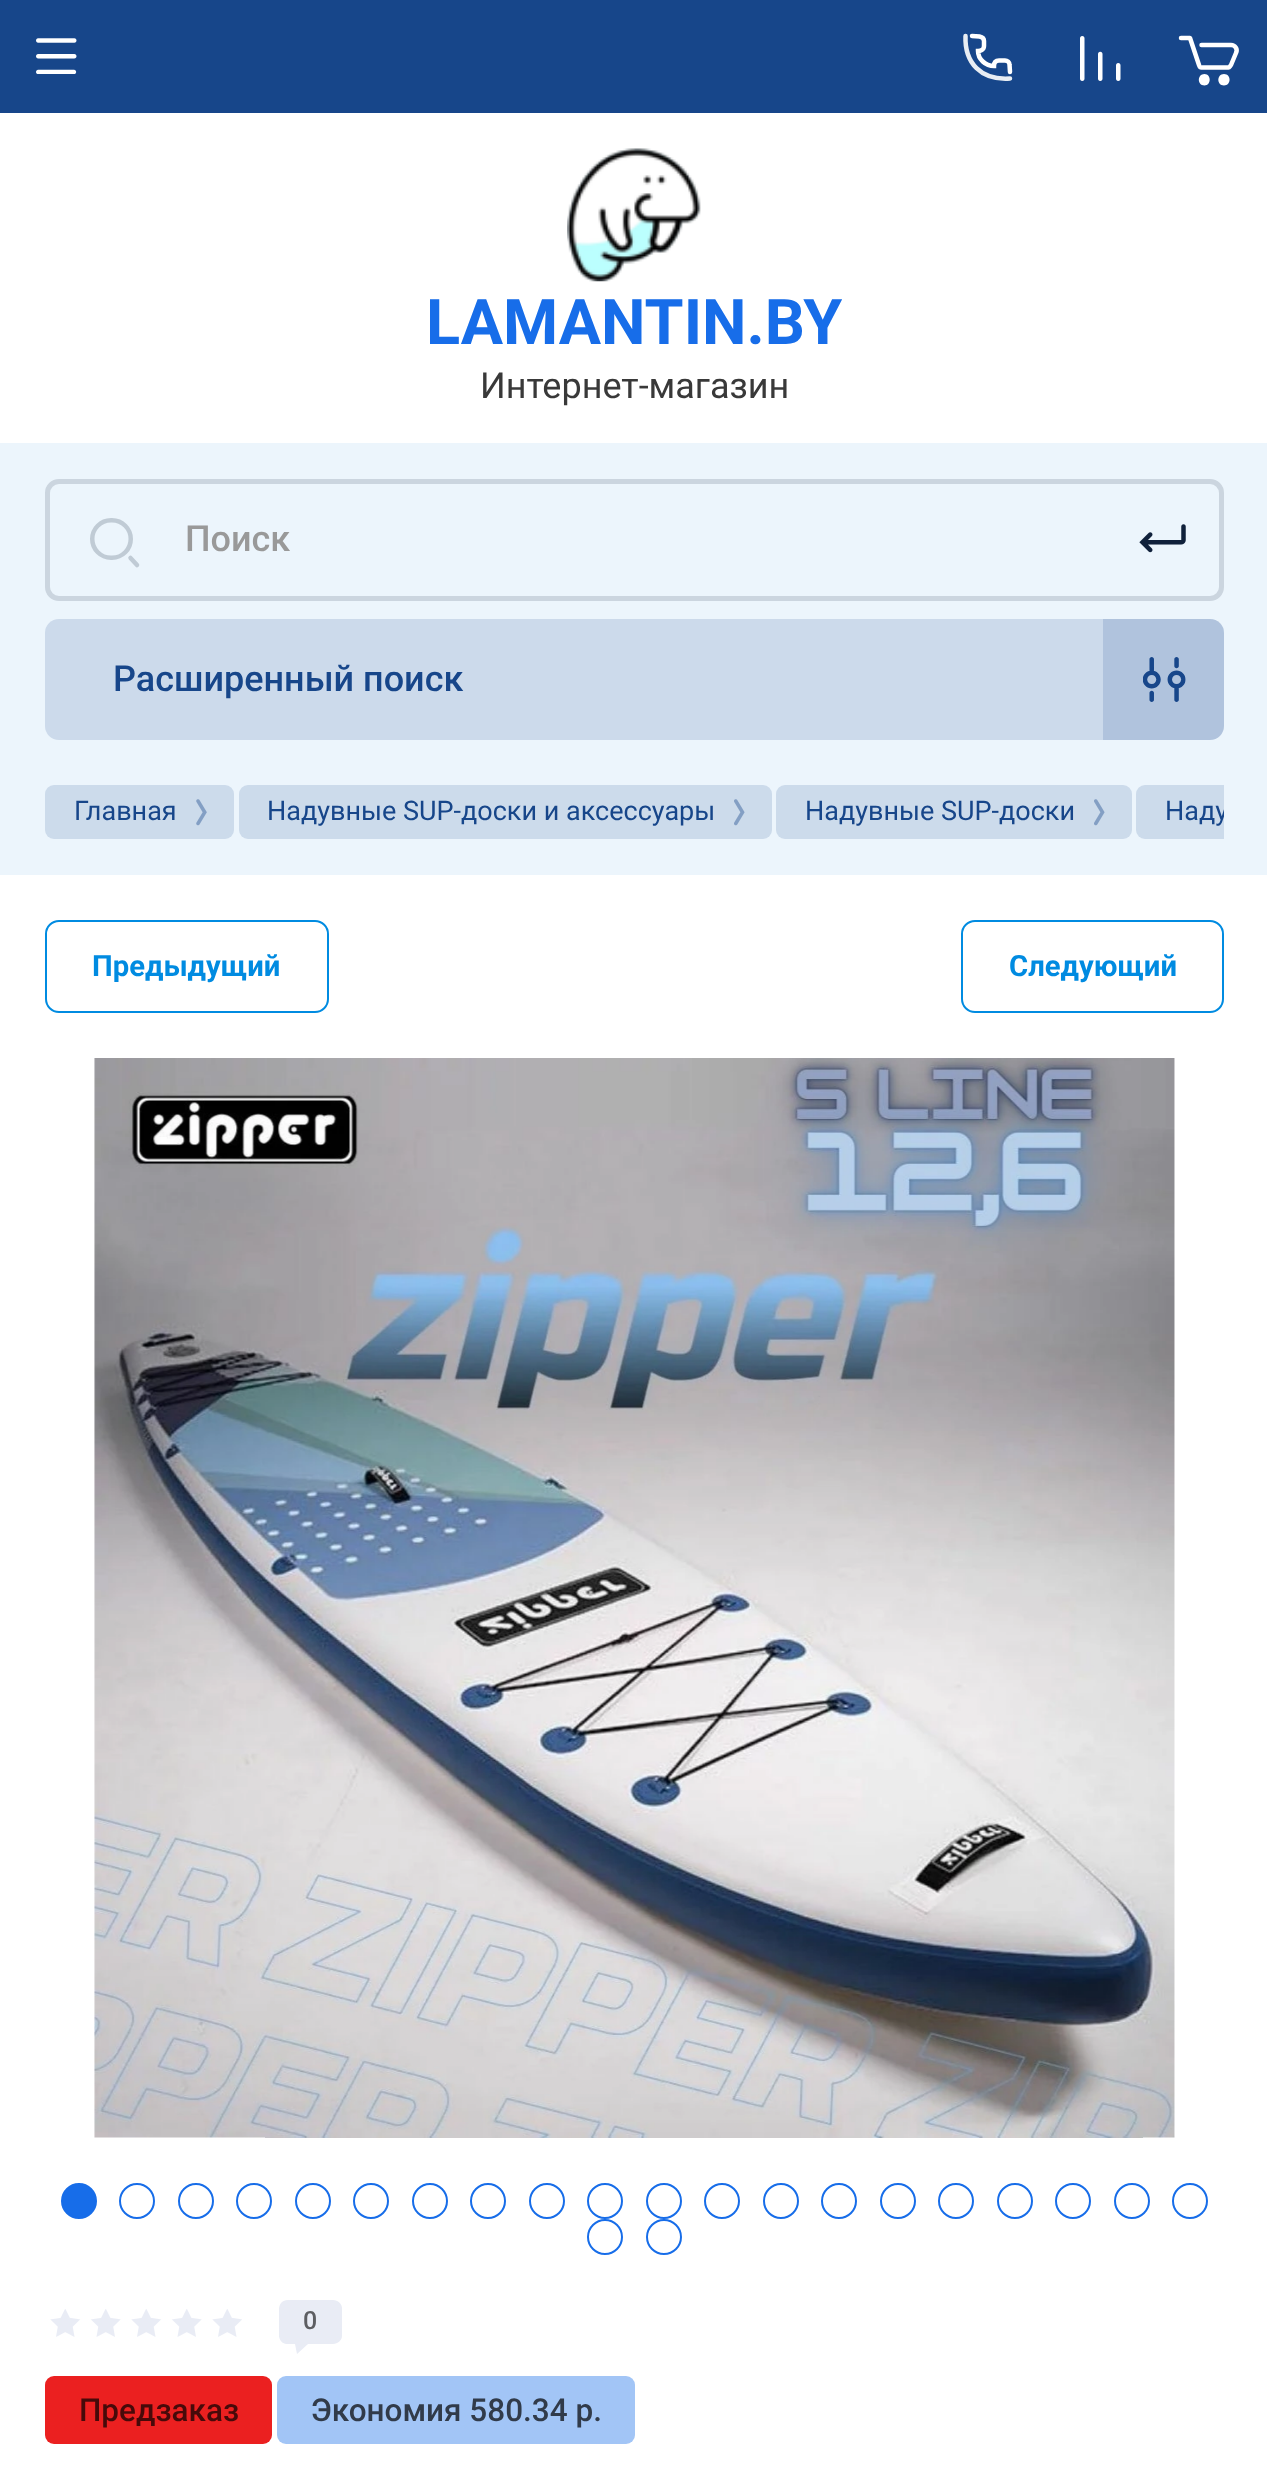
<!DOCTYPE html>
<meta charset="utf-8">
<style>body { margin: 0 } canvas { display: block }</style>
<canvas id="canvas" width="1267" height="2475"></canvas>
<script type="module">
  const canvas = document.getElementById("canvas");
  const ctx = canvas.getContext("2d");
  ctx.miterLimit = 4;
  ctx.fontKerning = "normal";
  async function loadImage(src) {
    const img = new Image();
    img.src = src;
    await img.decode();
    return img;
  }

  ctx.fillStyle = "#ecf5fc";
  ctx.fillRect(0, 0, 1267, 2475);
  ctx.fillStyle = "#17468a";
  ctx.fillRect(0, 0, 1267, 113);
  ctx.drawImage(await loadImage("img1.png"), 36, 38, 41, 36);
  ctx.beginPath();
  ctx.moveTo(965.5, 36);
  ctx.bezierCurveTo(964.5, 63, 981, 80.5, 1010, 78.5);
  ctx.strokeStyle = "#e8edf3";
  ctx.lineWidth = 4.5;
  ctx.lineCap = "round";
  ctx.stroke();
  ctx.beginPath();
  ctx.moveTo(1010, 72);
  ctx.lineTo(1009.5, 64.5);
  ctx.bezierCurveTo(1009.5, 62.5, 1007.5, 60.5, 1005, 60.5);
  ctx.lineTo(999, 60.5);
  ctx.bezierCurveTo(994.5, 60.5, 994, 64, 994, 66);
  ctx.bezierCurveTo(985.5, 66, 978, 59, 978, 51);
  ctx.bezierCurveTo(980, 51, 984, 50, 984, 46);
  ctx.lineTo(984, 41);
  ctx.bezierCurveTo(984, 38.5, 982, 37, 979.5, 36.5);
  ctx.lineTo(972, 36);
  ctx.strokeStyle = "#ffffff";
  ctx.stroke();
  ctx.drawImage(await loadImage("img2.png"), 1080, 36, 41, 45);
  ctx.fillStyle = "#ffffff";
  ctx.beginPath();
  ctx.moveTo(1204.5, 74);
  ctx.bezierCurveTo(1197, 74, 1197, 85.5, 1204.5, 85.5);
  ctx.bezierCurveTo(1211.5, 85.5, 1211.5, 74, 1204.5, 74);
  ctx.closePath();
  ctx.moveTo(1224, 74);
  ctx.bezierCurveTo(1216.5, 74, 1216.5, 85.5, 1224, 85.5);
  ctx.bezierCurveTo(1231.5, 85.5, 1231.5, 74, 1224, 74);
  ctx.closePath();
  ctx.fill("evenodd");
  ctx.beginPath();
  ctx.moveTo(1181, 38);
  ctx.lineTo(1190, 38);
  ctx.lineTo(1199, 65);
  ctx.bezierCurveTo(1199.5, 67, 1200, 67.5, 1201.5, 67.5);
  ctx.lineTo(1228.5, 67.5);
  ctx.bezierCurveTo(1229.5, 67.5, 1229.5, 67, 1231, 65);
  ctx.lineTo(1236, 53);
  ctx.bezierCurveTo(1238, 49, 1235, 45, 1231, 45);
  ctx.lineTo(1201.5, 45);
  ctx.lineJoin = "round";
  ctx.stroke();
  ctx.fillRect(0, 113, 1267, 330);
  ctx.drawImage(await loadImage("img3.png"), 567, 148, 134, 134);
  ctx.font = "bold 63px Roboto";
  ctx.fillStyle = "#176de9";
  ctx.fillText("LAMANTIN.BY", 426, 344);
  ctx.font = "36px Roboto";
  ctx.fillStyle = "#393939";
  ctx.fillText("Интернет-магазин", 480, 398);
  ctx.beginPath();
  ctx.roundRect(47.5, 481.5, 1174, 117, 11.5);
  ctx.strokeStyle = "#cbd5df";
  ctx.lineWidth = 5;
  ctx.lineJoin = "miter";
  ctx.stroke();
  ctx.beginPath();
  ctx.roundRect(92.25, 520.25, 38.5, 37.5, 18.75);
  ctx.strokeStyle = "#c0cbd5";
  ctx.lineWidth = 4.5;
  ctx.stroke();
  ctx.beginPath();
  ctx.moveTo(130.5, 558);
  ctx.lineTo(137, 565);
  ctx.stroke();
  ctx.font = "500 36px Roboto";
  ctx.fillStyle = "#999999";
  ctx.fillText("Поиск", 185, 551);
  ctx.drawImage(await loadImage("img4.png"), 1139, 524, 47, 29);
  ctx.fillStyle = "#ccdaeb";
  ctx.beginPath();
  ctx.roundRect(45, 619, 1179, 121, 14);
  ctx.fill();
  ctx.fillStyle = "#17468a";
  ctx.fillText("Расширенный поиск", 113, 691);
  ctx.fillStyle = "rgba(23, 70, 138, 0.15)";
  ctx.beginPath();
  ctx.roundRect(1103, 619, 121, 121, [0, 14, 14, 0]);
  ctx.fill();
  ctx.drawImage(await loadImage("img5.png"), 1143, 657, 43, 45);
  ctx.fillStyle = "#ccdbeb";
  ctx.beginPath();
  ctx.roundRect(45, 785, 189, 54, 9);
  ctx.fill();
  ctx.font = "27px Roboto";
  ctx.fillStyle = "#17468a";
  ctx.fillText("Главная", 74, 820);
  ctx.drawImage(await loadImage("img6.png"), 196, 799, 11, 27);
  ctx.fillStyle = "#ccdbeb";
  ctx.beginPath();
  ctx.roundRect(239, 785, 533, 54, 9);
  ctx.fill();
  ctx.fillStyle = "#17468a";
  ctx.fillText("Надувные SUP-доски и аксессуары", 267, 820);
  ctx.drawImage(await loadImage("img7.png"), 734, 799, 11, 27);
  ctx.fillStyle = "#ccdbeb";
  ctx.beginPath();
  ctx.roundRect(776, 785, 356, 54, 9);
  ctx.fill();
  ctx.fillStyle = "#17468a";
  ctx.fillText("Надувные SUP-доски", 805, 820);
  ctx.drawImage(await loadImage("img7.png"), 1094, 799, 11, 27);
  ctx.fillStyle = "#ccdbeb";
  ctx.beginPath();
  ctx.roundRect(1136, 785, 88, 54, [9, 0, 0, 9]);
  ctx.fill();
  ctx.save();
  ctx.beginPath();
  ctx.rect(45, 785, 1179, 54);
  ctx.clip();
  ctx.fillStyle = "#17468a";
  ctx.fillText("Наду", 1165, 820);
  ctx.restore();
  ctx.fillStyle = "#ffffff";
  ctx.fillRect(0, 875, 1267, 1600);
  ctx.beginPath();
  ctx.roundRect(46, 921, 282, 91, 13);
  ctx.strokeStyle = "#008be1";
  ctx.lineWidth = 2;
  ctx.stroke();
  ctx.font = "bold 29.25px Roboto";
  ctx.fillStyle = "#008be1";
  ctx.fillText("Предыдущий", 92, 976);
  ctx.beginPath();
  ctx.roundRect(962, 921, 261, 91, 13);
  ctx.stroke();
  ctx.fillText("Следующий", 1009, 976);
  ctx.drawImage(await loadImage("img8.png"), 94, 1058, 1081, 1080);
  ctx.fillStyle = "#176de9";
  ctx.beginPath();
  ctx.arc(79, 2201, 17, 0, Math.PI * 2);
  ctx.fill();
  ctx.strokeStyle = "#176de9";
  ctx.stroke();
  ctx.beginPath();
  ctx.arc(137, 2201, 17, 0, Math.PI * 2);
  ctx.stroke();
  ctx.beginPath();
  ctx.arc(196, 2201, 17, 0, Math.PI * 2);
  ctx.stroke();
  ctx.beginPath();
  ctx.arc(254, 2201, 17, 0, Math.PI * 2);
  ctx.stroke();
  ctx.beginPath();
  ctx.arc(313, 2201, 17, 0, Math.PI * 2);
  ctx.stroke();
  ctx.beginPath();
  ctx.arc(371, 2201, 17, 0, Math.PI * 2);
  ctx.stroke();
  ctx.beginPath();
  ctx.arc(430, 2201, 17, 0, Math.PI * 2);
  ctx.stroke();
  ctx.beginPath();
  ctx.arc(488, 2201, 17, 0, Math.PI * 2);
  ctx.stroke();
  ctx.beginPath();
  ctx.arc(547, 2201, 17, 0, Math.PI * 2);
  ctx.stroke();
  ctx.beginPath();
  ctx.arc(605, 2201, 17, 0, Math.PI * 2);
  ctx.stroke();
  ctx.beginPath();
  ctx.arc(664, 2201, 17, 0, Math.PI * 2);
  ctx.stroke();
  ctx.beginPath();
  ctx.arc(722, 2201, 17, 0, Math.PI * 2);
  ctx.stroke();
  ctx.beginPath();
  ctx.arc(781, 2201, 17, 0, Math.PI * 2);
  ctx.stroke();
  ctx.beginPath();
  ctx.arc(839, 2201, 17, 0, Math.PI * 2);
  ctx.stroke();
  ctx.beginPath();
  ctx.arc(898, 2201, 17, 0, Math.PI * 2);
  ctx.stroke();
  ctx.beginPath();
  ctx.arc(956, 2201, 17, 0, Math.PI * 2);
  ctx.stroke();
  ctx.beginPath();
  ctx.arc(1015, 2201, 17, 0, Math.PI * 2);
  ctx.stroke();
  ctx.beginPath();
  ctx.arc(1073, 2201, 17, 0, Math.PI * 2);
  ctx.stroke();
  ctx.beginPath();
  ctx.arc(1132, 2201, 17, 0, Math.PI * 2);
  ctx.stroke();
  ctx.beginPath();
  ctx.arc(1190, 2201, 17, 0, Math.PI * 2);
  ctx.stroke();
  ctx.beginPath();
  ctx.arc(605, 2237, 17, 0, Math.PI * 2);
  ctx.stroke();
  ctx.beginPath();
  ctx.arc(664, 2237, 17, 0, Math.PI * 2);
  ctx.stroke();
  ctx.drawImage(await loadImage("img9.png"), 50, 2309, 192, 28);
  ctx.save();
  ctx.beginPath();
  ctx.rect(279, 2300, 63, 54);
  ctx.clip();
  ctx.fillStyle = "#e9ecf5";
  ctx.beginPath();
  ctx.moveTo(288, 2300);
  ctx.bezierCurveTo(276, 2300, 279, 2315, 279, 2322);
  ctx.bezierCurveTo(279, 2329, 276, 2342, 286, 2344);
  ctx.lineTo(295, 2344);
  ctx.lineTo(297, 2354);
  ctx.lineTo(308, 2344);
  ctx.lineTo(333, 2344);
  ctx.bezierCurveTo(338, 2344, 342, 2340, 342, 2336);
  ctx.lineTo(342, 2308);
  ctx.bezierCurveTo(342, 2304, 338, 2300, 333, 2300);
  ctx.closePath();
  ctx.fill();
  ctx.restore();
  ctx.font = "500 25px Roboto";
  ctx.fillStyle = "#5d5e62";
  ctx.fillText("0", 303, 2329);
  ctx.fillStyle = "#eb2020";
  ctx.beginPath();
  ctx.roundRect(45, 2376, 227, 68, 9);
  ctx.fill();
  ctx.font = "500 31.5px Roboto";
  ctx.fillStyle = "#470a0a";
  ctx.fillText("Предзаказ", 79, 2421);
  ctx.fillStyle = "#a2c5f6";
  ctx.beginPath();
  ctx.roundRect(277, 2376, 358, 68, 9);
  ctx.fill();
  ctx.fillStyle = "#313b4a";
  ctx.fillText("Экономия 580.34 р.", 311, 2421);
</script>
